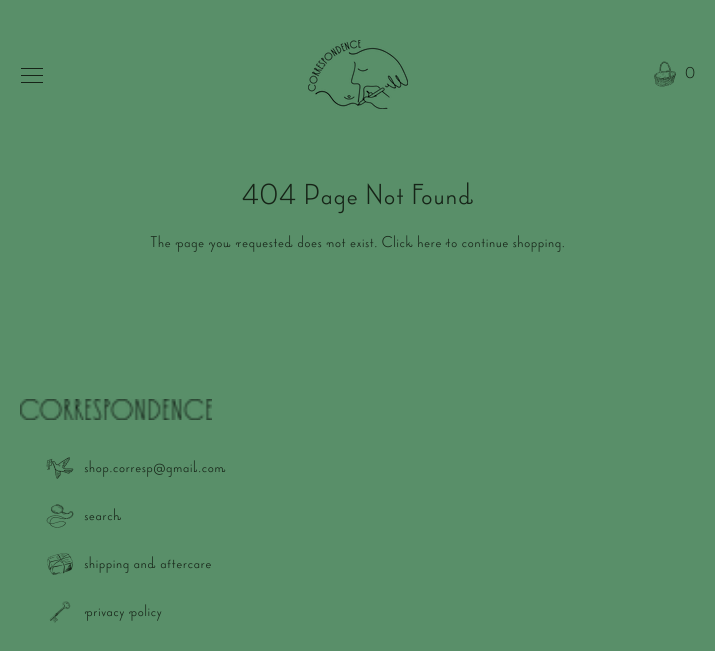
<!DOCTYPE html>
<meta charset="utf-8">
<style>body { margin: 0 } canvas { display: block }</style>
<canvas id="canvas" width="715" height="651"></canvas>
<script type="module">
  const canvas = document.getElementById("canvas");
  const ctx = canvas.getContext("2d");
  ctx.miterLimit = 4;
  ctx.fontKerning = "normal";
  async function loadImage(src) {
    const img = new Image();
    img.src = src;
    await img.decode();
    return img;
  }

  ctx.fillStyle = "#598f69";
  ctx.fillRect(0, 0, 715, 651);
  ctx.drawImage(await loadImage("img1.png"), 21, 68, 22, 15);
  ctx.drawImage(await loadImage("img2.png"), 308, 40, 100, 69);
  ctx.drawImage(await loadImage("img3.png"), 654, 61, 22, 26);
  ctx.drawImage(await loadImage("img4.png"), 685, 66, 10, 13);
  ctx.drawImage(await loadImage("img5.png"), 242, 182, 231, 32);
  ctx.drawImage(await loadImage("img6.png"), 150, 235, 263, 17);
  ctx.drawImage(await loadImage("img7.png"), 418, 235, 23, 13);
  ctx.drawImage(await loadImage("img8.png"), 445, 235, 119, 17);
  ctx.drawImage(await loadImage("img9.png"), 20, 399, 192, 21);
  ctx.drawImage(await loadImage("img10.png"), 46, 457, 28, 22);
  ctx.drawImage(await loadImage("img11.png"), 84, 460, 142, 17);
  ctx.drawImage(await loadImage("img12.png"), 46, 504, 28, 24);
  ctx.drawImage(await loadImage("img13.png"), 84, 508, 37, 13);
  ctx.drawImage(await loadImage("img14.png"), 47, 553, 26, 22);
  ctx.drawImage(await loadImage("img15.png"), 84, 556, 127, 17);
  ctx.drawImage(await loadImage("img16.png"), 49, 601, 22, 22);
  ctx.drawImage(await loadImage("img17.png"), 84, 604, 78, 17);
</script>
